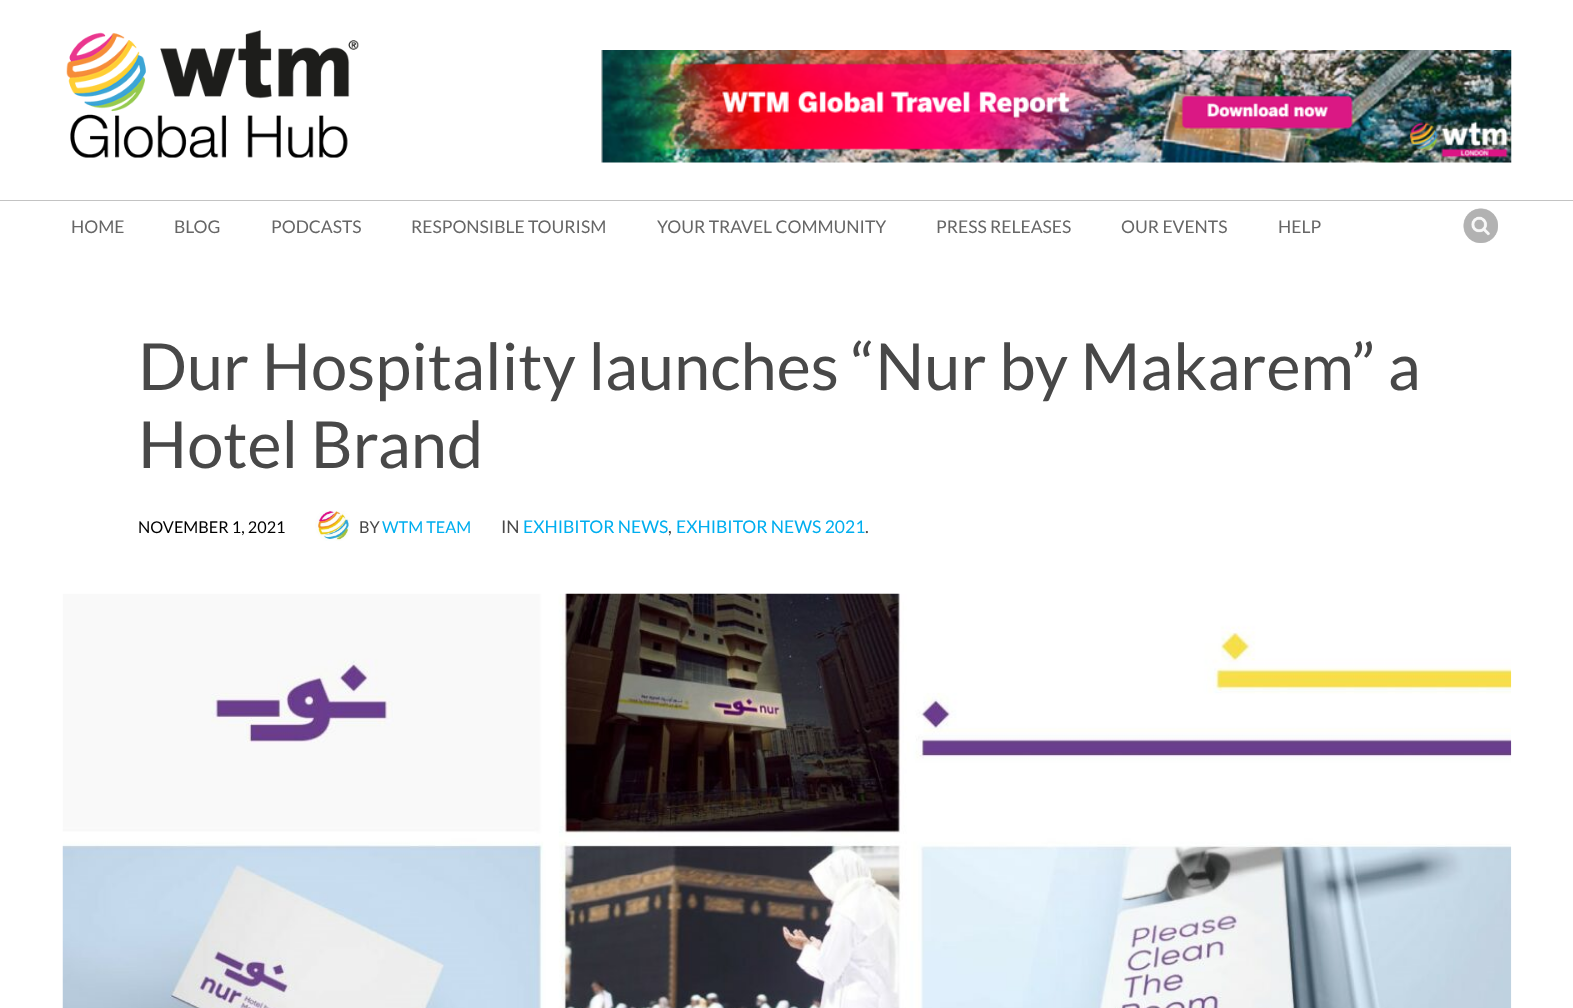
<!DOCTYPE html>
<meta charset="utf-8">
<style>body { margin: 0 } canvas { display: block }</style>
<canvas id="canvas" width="1573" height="1008"></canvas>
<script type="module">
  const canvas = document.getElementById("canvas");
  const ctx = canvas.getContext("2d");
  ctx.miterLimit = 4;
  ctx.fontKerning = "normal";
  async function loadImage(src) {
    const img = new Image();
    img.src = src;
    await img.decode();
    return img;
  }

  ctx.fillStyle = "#ffffff";
  ctx.fillRect(0, 0, 1573, 1008);
  ctx.drawImage(await loadImage("img1.png"), 66, 30, 293, 128);
  ctx.drawImage(await loadImage("img2.png"), 601, 50, 911, 113);
  ctx.fillStyle = "#c3c3c3";
  ctx.fillRect(0, 200, 1573, 1);
  ctx.font = "17.5px Lato";
  ctx.fillStyle = "#666666";
  ctx.fillText("HOME", 71, 233);
  ctx.fillText("BLOG", 174, 233);
  ctx.fillText("PODCASTS", 271, 233);
  ctx.fillText("RESPONSIBLE TOURISM", 411, 233);
  ctx.fillText("YOUR TRAVEL COMMUNITY", 657, 233);
  ctx.fillText("PRESS RELEASES", 936, 233);
  ctx.fillText("OUR EVENTS", 1121, 233);
  ctx.fillText("HELP", 1278, 233);
  ctx.drawImage(await loadImage("img3.png"), 1463, 208, 35, 35);
  ctx.font = "65px Lato";
  ctx.fillStyle = "#484848";
  ctx.fillText("Dur Hospitality launches “Nur by Makarem” a", 138, 390);
  ctx.fillText("Hotel Brand", 138, 468);
  ctx.font = "16.25px Lato";
  ctx.fillStyle = "#000000";
  ctx.fillText("NOVEMBER 1, 2021", 138, 533);
  ctx.drawImage(await loadImage("img4.png"), 315, 510, 35, 31);
  ctx.fillStyle = "#484848";
  ctx.fillText("BY", 359, 533);
  ctx.fillStyle = "#00aeef";
  ctx.fillText("WTM TEAM", 382, 533);
  ctx.font = "17.5px Lato";
  ctx.fillStyle = "#484848";
  ctx.fillText("IN", 501, 533);
  ctx.fillStyle = "#00aeef";
  ctx.fillText("EXHIBITOR NEWS", 523, 533);
  ctx.fillStyle = "#484848";
  ctx.fillText(",", 668, 533);
  ctx.fillStyle = "#00aeef";
  ctx.fillText("EXHIBITOR NEWS 2021", 676, 533);
  ctx.fillStyle = "#484848";
  ctx.fillText(".", 865, 533);
  ctx.drawImage(await loadImage("img5.png"), 62, 593, 1450, 415);
</script>
